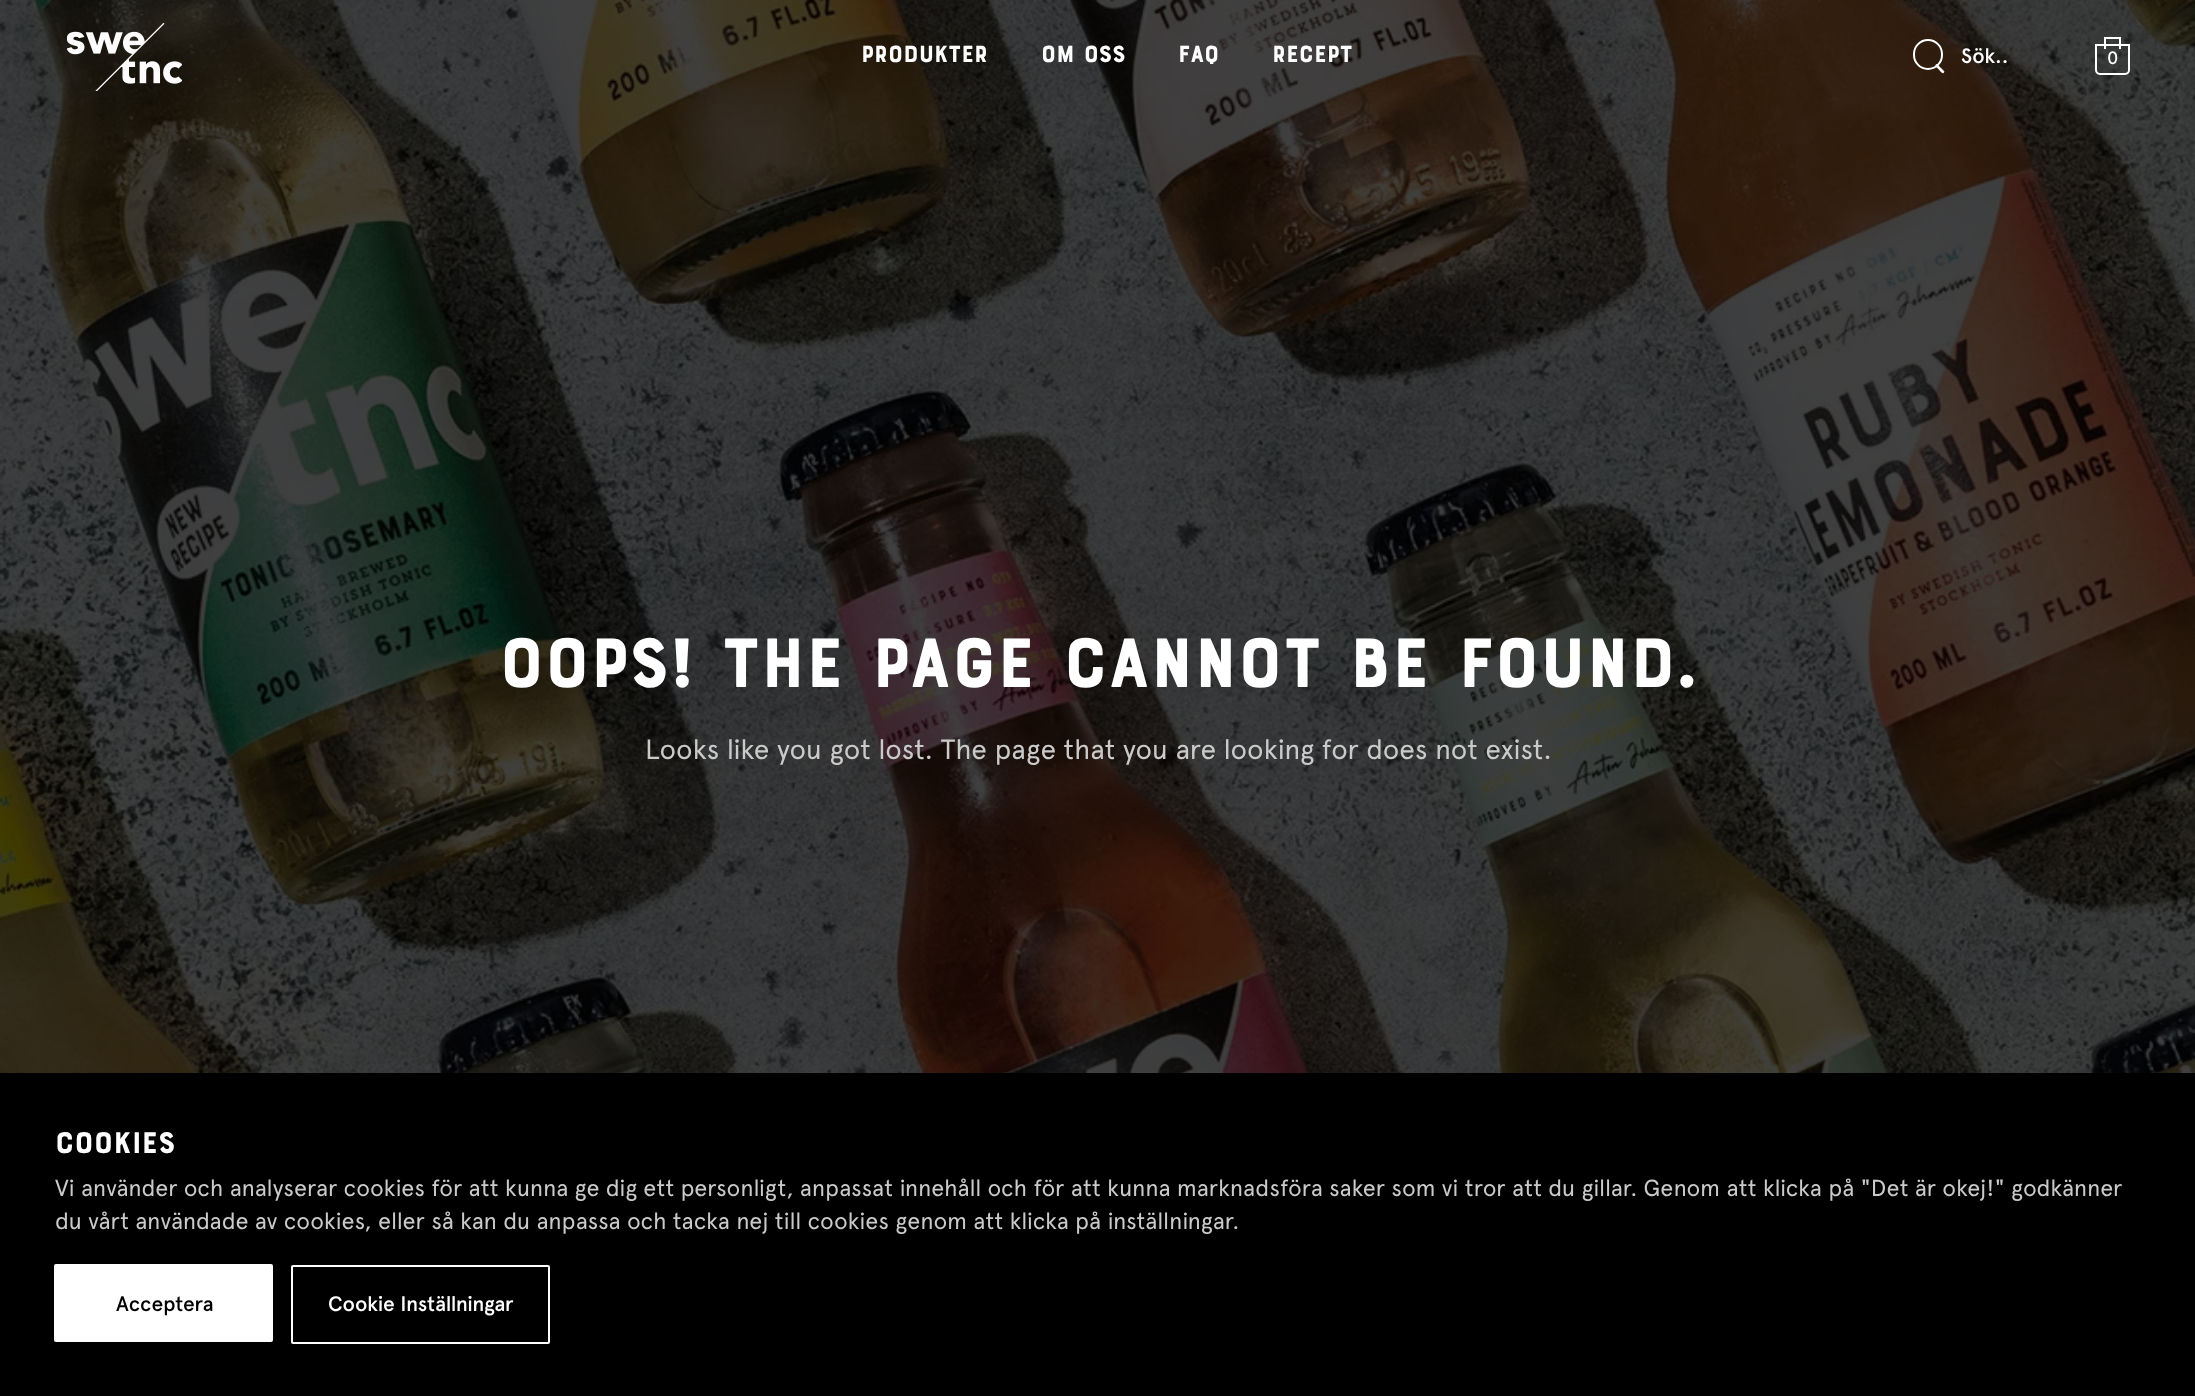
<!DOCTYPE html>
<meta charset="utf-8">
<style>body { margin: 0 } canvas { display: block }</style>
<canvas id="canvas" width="2195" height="1396"></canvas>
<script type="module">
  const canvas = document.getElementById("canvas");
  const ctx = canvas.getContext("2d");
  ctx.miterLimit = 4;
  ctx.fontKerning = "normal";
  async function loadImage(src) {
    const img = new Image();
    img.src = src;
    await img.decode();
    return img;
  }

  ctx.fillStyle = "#ffffff";
  ctx.fillRect(0, 0, 2195, 1396);
  ctx.drawImage(await loadImage("img1.png"), 0, 0, 2195, 1073);
  ctx.drawImage(await loadImage("img2.png"), 67, 23, 115, 68);
  ctx.font = "24.5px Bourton";
  ctx.fillText("Produkter", 861, 62);
  ctx.fillText("Om oss", 1041, 62);
  ctx.fillText("FAQ", 1178, 62);
  ctx.fillText("Recept", 1272, 62);
  ctx.beginPath();
  ctx.roundRect(1914, 40, 28, 29, 14);
  ctx.strokeStyle = "#ffffff";
  ctx.lineWidth = 2;
  ctx.stroke();
  ctx.beginPath();
  ctx.moveTo(1935.5, 65);
  ctx.bezierCurveTo(1937, 63.5, 1937.5, 64, 1938.5, 65.5);
  ctx.lineTo(1943, 70);
  ctx.bezierCurveTo(1944.5, 71.5, 1945, 71.5, 1943.5, 73);
  ctx.bezierCurveTo(1942.5, 74, 1939.5, 70.5, 1939, 69.5);
  ctx.bezierCurveTo(1938.5, 69, 1934.5, 66, 1935.5, 65);
  ctx.closePath();
  ctx.fill();
  ctx.font = "500 21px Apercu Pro";
  ctx.fillText("Sök..", 1961, 63);
  ctx.beginPath();
  ctx.roundRect(2096, 45, 33, 29, [0, 0, 4, 4]);
  ctx.stroke();
  ctx.fillRect(2104, 37, 2, 12);
  ctx.fillRect(2104, 37, 17, 2);
  ctx.fillRect(2119, 37, 2, 12);
  ctx.font = "500 18px Apercu Pro";
  ctx.fillText("0", 2107, 64);
  ctx.font = "73.5px Bourton";
  ctx.fillText("Oops! The page cannot be found.", 499, 687);
  ctx.font = "28px Apercu Pro";
  ctx.fillStyle = "#cacaca";
  ctx.fillText("Looks like you got lost. The page that you are looking for does not exist.", 645, 759);
  ctx.fillStyle = "#000000";
  ctx.fillRect(0, 1073, 2195, 323);
  ctx.font = "31.5px Bourton";
  ctx.fillStyle = "#ffffff";
  ctx.fillText("Cookies", 55, 1153);
  ctx.font = "23.33px Apercu Pro";
  ctx.fillStyle = "#cacaca";
  ctx.fillText("Vi använder och analyserar cookies för att kunna ge dig ett personligt, anpassat innehåll och för att kunna marknadsföra saker som vi tror att du gillar. Genom att klicka på \"Det är okej!\" godkänner", 55, 1196);
  ctx.fillText("du vårt användade av cookies, eller så kan du anpassa och tacka nej till cookies genom att klicka på inställningar.", 55, 1229);
  ctx.fillStyle = "#ffffff";
  ctx.beginPath();
  ctx.roundRect(54, 1264, 219, 78, 2);
  ctx.fill();
  ctx.font = "500 21px Apercu Pro";
  ctx.fillStyle = "#000000";
  ctx.fillText("Acceptera", 116, 1311);
  ctx.beginPath();
  ctx.roundRect(292, 1266, 257, 77, 1);
  ctx.stroke();
  ctx.fillStyle = "#ffffff";
  ctx.fillText("Cookie Inställningar", 328, 1311);
</script>
